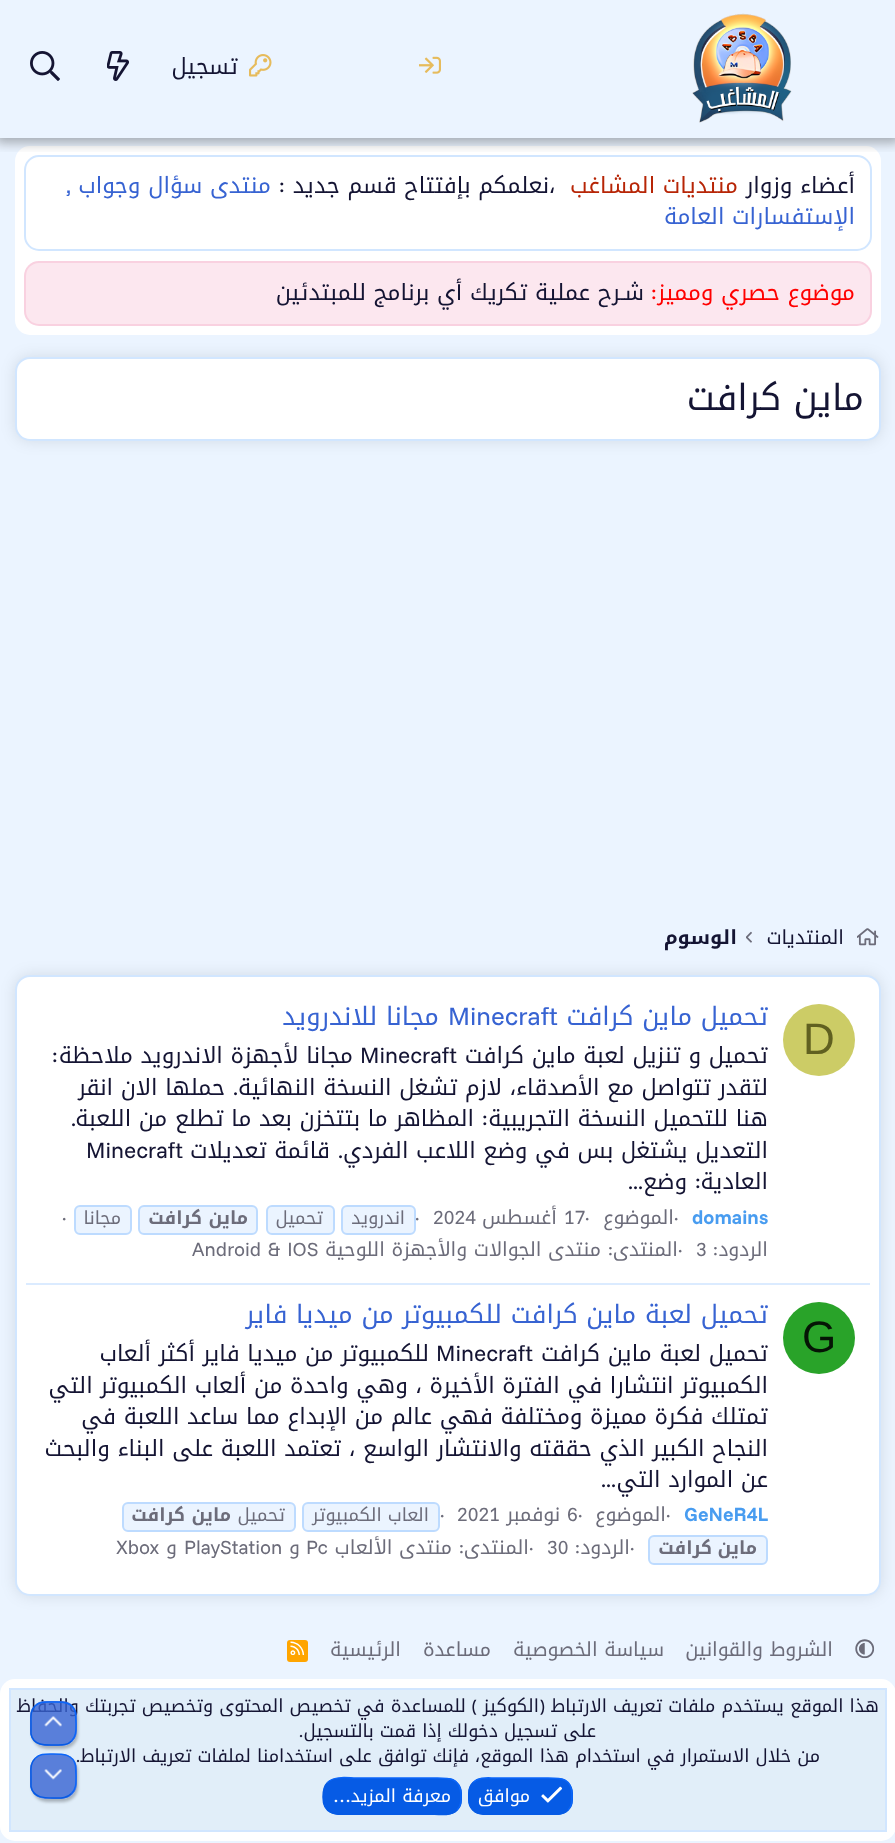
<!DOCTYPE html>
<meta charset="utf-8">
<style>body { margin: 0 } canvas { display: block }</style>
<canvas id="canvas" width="895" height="1843"></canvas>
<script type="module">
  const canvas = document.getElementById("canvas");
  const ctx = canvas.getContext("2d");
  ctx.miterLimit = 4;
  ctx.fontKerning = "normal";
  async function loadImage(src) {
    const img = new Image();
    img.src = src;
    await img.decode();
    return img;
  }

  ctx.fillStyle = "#ebf4ff";
  ctx.fillRect(0, 0, 895, 1843);
  ctx.fillStyle = "#ffffff";
  ctx.beginPath();
  ctx.roundRect(15, 146, 866, 189, 15);
  ctx.fill();
  ctx.beginPath();
  ctx.roundRect(25, 156, 846, 94, 14);
  ctx.strokeStyle = "#d1e6ff";
  ctx.lineWidth = 2;
  ctx.stroke();
  ctx.save();
  ctx.beginPath();
  ctx.rect(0, 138, 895, 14);
  ctx.clip();
  ctx.fillStyle = "rgba(0, 0, 0, 0.3)";
  ctx.filter = "blur(6px)";
  ctx.beginPath();
  ctx.rect(-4, -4, 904, 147);
  ctx.fill();
  ctx.filter = "none";
  ctx.restore();
  ctx.drawImage(await loadImage("img1.png"), 692, 13, 100, 110);
  ctx.drawImage(await loadImage("img2.png"), 419, 56, 22, 18);
  ctx.drawImage(await loadImage("img3.png"), 249, 54, 23, 23);
  ctx.direction = "rtl";
  ctx.font = "22.5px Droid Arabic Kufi";
  ctx.fillStyle = "#141433";
  ctx.fillText("تسجيل", 238, 74);
  ctx.drawImage(await loadImage("img4.png"), 107, 51, 22, 30);
  ctx.drawImage(await loadImage("img5.png"), 30, 51, 30, 30);
  ctx.fillText("أعضاء وزوار", 855, 193);
  ctx.fillStyle = "#b72506";
  ctx.fillText("منتديات المشاغب", 738, 193);
  ctx.direction = "ltr";
  ctx.fillStyle = "#141433";
  ctx.fillText("،", 549, 193);
  ctx.direction = "rtl";
  ctx.fillText("نعلمكم بإفتتاح قسم جديد", 549, 193);
  ctx.font = "22.5px Funnel Sans";
  ctx.fillText(":", 285, 193);
  ctx.font = "22.5px Droid Arabic Kufi";
  ctx.fillStyle = "#3763d2";
  ctx.fillText("منتدى سؤال وجواب", 271, 193);
  ctx.font = "22.5px Funnel Sans";
  ctx.fillText(",", 71, 193);
  ctx.font = "22.5px Droid Arabic Kufi";
  ctx.fillText("الإستفسارات العامة", 855, 224);
  ctx.fillStyle = "#fce7ef";
  ctx.beginPath();
  ctx.roundRect(24, 261, 848, 65, 15);
  ctx.fill();
  ctx.beginPath();
  ctx.roundRect(25, 262, 846, 63, 14);
  ctx.strokeStyle = "rgba(222, 18, 99, 0.1)";
  ctx.stroke();
  ctx.fillStyle = "#ff0000";
  ctx.fillText("موضوع حصري ومميز", 855, 300);
  ctx.font = "22.5px Funnel Sans";
  ctx.fillText(":", 657, 300);
  ctx.font = "22.5px Droid Arabic Kufi";
  ctx.fillStyle = "#141433";
  ctx.fillText("شـرح عملية تكريك أي برنامج للمبتدئين", 644, 300);
  ctx.fillStyle = "rgba(0, 0, 0, 0.1)";
  ctx.filter = "blur(7.5px)";
  ctx.beginPath();
  ctx.roundRect(15, 357, 866, 84, 15);
  ctx.fill();
  ctx.filter = "none";
  ctx.fillStyle = "#ffffff";
  ctx.beginPath();
  ctx.roundRect(16, 358, 864, 82, 14);
  ctx.fill();
  ctx.strokeStyle = "#d1e6ff";
  ctx.stroke();
  ctx.font = "36px Droid Arabic Kufi";
  ctx.fillStyle = "#141433";
  ctx.fillText("ماين كرافت", 864, 410);
  ctx.drawImage(await loadImage("img6.png"), 857, 928, 22, 18);
  ctx.font = "19.5px Droid Arabic Kufi";
  ctx.fillText("المنتديات", 844, 944);
  ctx.drawImage(await loadImage("img7.png"), 746, 931, 6, 12);
  ctx.font = "bold 19.5px Droid Arabic Kufi";
  ctx.fillText("الوسوم", 737, 944);
  ctx.fillStyle = "rgba(0, 0, 0, 0.1)";
  ctx.filter = "blur(7.5px)";
  ctx.beginPath();
  ctx.roundRect(15, 975, 866, 621, 15);
  ctx.fill();
  ctx.filter = "none";
  ctx.fillStyle = "#ffffff";
  ctx.beginPath();
  ctx.roundRect(16, 976, 864, 619, 14);
  ctx.fill();
  ctx.stroke();
  ctx.fillStyle = "#cccc66";
  ctx.beginPath();
  ctx.arc(819, 1040, 36, 0, Math.PI * 2);
  ctx.fill();
  ctx.direction = "ltr";
  ctx.font = "44px Liberation Sans";
  ctx.fillStyle = "#606020";
  ctx.fillText("D", 803, 1054);
  ctx.direction = "rtl";
  ctx.font = "25.5px Droid Arabic Kufi";
  ctx.fillStyle = "#3763d2";
  ctx.fillText("تحميل ماين كرافت", 768, 1025);
  ctx.direction = "ltr";
  ctx.font = "25.5px Funnel Sans";
  ctx.fillText("Minecraft", 448, 1025);
  ctx.direction = "rtl";
  ctx.font = "25.5px Droid Arabic Kufi";
  ctx.fillText("مجانا للاندرويد", 439, 1025);
  ctx.font = "22.5px Droid Arabic Kufi";
  ctx.fillStyle = "#141433";
  ctx.fillText("تحميل و تنزيل لعبة ماين كرافت", 768, 1063);
  ctx.direction = "ltr";
  ctx.font = "22.5px Funnel Sans";
  ctx.fillText("Minecraft", 360, 1063);
  ctx.direction = "rtl";
  ctx.font = "22.5px Droid Arabic Kufi";
  ctx.fillText("مجانا لأجهزة الاندرويد", 353, 1063);
  ctx.fillText("ملاحظة", 133, 1063);
  ctx.font = "22.5px Funnel Sans";
  ctx.fillText(":", 58, 1063);
  ctx.font = "22.5px Droid Arabic Kufi";
  ctx.fillText("لتقدر تتواصل مع الأصدقاء، لازم تشغل النسخة النهائية", 768, 1095);
  ctx.font = "22.5px Funnel Sans";
  ctx.fillText(".", 238, 1095);
  ctx.font = "22.5px Droid Arabic Kufi";
  ctx.fillText("حملها الان", 225, 1095);
  ctx.fillText("انقر", 113, 1095);
  ctx.fillText("هنا للتحميل", 768, 1126);
  ctx.fillText("النسخة التجريبية", 646, 1126);
  ctx.font = "22.5px Funnel Sans";
  ctx.fillText(":", 488, 1126);
  ctx.font = "22.5px Droid Arabic Kufi";
  ctx.fillText("المظاهر ما بتتخزن بعد ما تطلع من اللعبة", 474, 1126);
  ctx.font = "22.5px Funnel Sans";
  ctx.fillText(".", 76, 1126);
  ctx.font = "22.5px Droid Arabic Kufi";
  ctx.fillText("التعديل يشتغل بس في وضع اللاعب الفردي", 768, 1158);
  ctx.font = "22.5px Funnel Sans";
  ctx.fillText(".", 343, 1158);
  ctx.font = "22.5px Droid Arabic Kufi";
  ctx.fillText("قائمة تعديلات", 330, 1158);
  ctx.direction = "ltr";
  ctx.font = "22.5px Funnel Sans";
  ctx.fillText("Minecraft", 86, 1158);
  ctx.direction = "rtl";
  ctx.font = "22.5px Droid Arabic Kufi";
  ctx.fillText("العادية", 768, 1189);
  ctx.font = "22.5px Funnel Sans";
  ctx.fillText(":", 701, 1189);
  ctx.font = "22.5px Droid Arabic Kufi";
  ctx.fillText("وضع", 687, 1189);
  ctx.font = "22.5px Funnel Sans";
  ctx.fillText("...", 643, 1189);
  ctx.direction = "ltr";
  ctx.font = "bold 19.5px Funnel Sans";
  ctx.fillStyle = "#489cf0";
  ctx.fillText("domains", 692, 1224);
  ctx.font = "19.5px Funnel Sans";
  ctx.fillStyle = "#6c6c7a";
  ctx.fillText("·", 674, 1224);
  ctx.direction = "rtl";
  ctx.font = "19.5px Droid Arabic Kufi";
  ctx.fillText("الموضوع", 674, 1224);
  ctx.direction = "ltr";
  ctx.font = "19.5px Funnel Sans";
  ctx.fillText("·", 585, 1224);
  ctx.fillText("17", 564, 1224);
  ctx.direction = "rtl";
  ctx.font = "19.5px Droid Arabic Kufi";
  ctx.fillText("أغسطس", 557, 1224);
  ctx.direction = "ltr";
  ctx.font = "19.5px Funnel Sans";
  ctx.fillText("2024", 433, 1224);
  ctx.fillText("·", 415, 1224);
  ctx.fillStyle = "#ebf4ff";
  ctx.beginPath();
  ctx.roundRect(342, 1206, 73, 28, 5);
  ctx.fill();
  ctx.strokeStyle = "#bddbff";
  ctx.stroke();
  ctx.direction = "rtl";
  ctx.font = "18px Droid Arabic Kufi";
  ctx.fillStyle = "#6c6c7a";
  ctx.fillText("اندرويد", 405, 1224);
  ctx.fillStyle = "#ebf4ff";
  ctx.beginPath();
  ctx.roundRect(267, 1206, 67, 28, 5);
  ctx.fill();
  ctx.stroke();
  ctx.fillStyle = "#6c6c7a";
  ctx.fillText("تحميل", 323, 1224);
  ctx.fillStyle = "#ebf4ff";
  ctx.beginPath();
  ctx.roundRect(139, 1206, 118, 28, 5);
  ctx.fill();
  ctx.stroke();
  ctx.font = "bold 18px Droid Arabic Kufi";
  ctx.fillStyle = "#6c6c7a";
  ctx.fillText("ماين", 248, 1224);
  ctx.fillText("كرافت", 202, 1224);
  ctx.fillStyle = "#ebf4ff";
  ctx.beginPath();
  ctx.roundRect(75, 1206, 56, 28, 5);
  ctx.fill();
  ctx.stroke();
  ctx.font = "18px Droid Arabic Kufi";
  ctx.fillStyle = "#6c6c7a";
  ctx.fillText("مجانا", 121, 1224);
  ctx.direction = "ltr";
  ctx.font = "19.5px Funnel Sans";
  ctx.fillText("·", 62, 1224);
  ctx.direction = "rtl";
  ctx.font = "19.5px Droid Arabic Kufi";
  ctx.fillText("الردود", 768, 1256);
  ctx.font = "19.5px Funnel Sans";
  ctx.fillText(":", 718, 1256);
  ctx.direction = "ltr";
  ctx.fillText("3", 696, 1256);
  ctx.fillText("·", 678, 1256);
  ctx.direction = "rtl";
  ctx.font = "19.5px Droid Arabic Kufi";
  ctx.fillText("المنتدى", 678, 1256);
  ctx.font = "19.5px Funnel Sans";
  ctx.fillText(":", 613, 1256);
  ctx.font = "19.5px Droid Arabic Kufi";
  ctx.fillText("منتدى الجوالات والأجهزة اللوحية", 601, 1256);
  ctx.wordSpacing = "2px";
  ctx.direction = "ltr";
  ctx.font = "19.5px Funnel Sans";
  ctx.fillText("Android & IOS", 192, 1256);
  ctx.fillStyle = "#dbebff";
  ctx.fillRect(26, 1283, 844, 2);
  ctx.fillStyle = "#29a329";
  ctx.beginPath();
  ctx.arc(819, 1338, 36, 0, Math.PI * 2);
  ctx.fill();
  ctx.wordSpacing = "0px";
  ctx.font = "44px Liberation Sans";
  ctx.fillStyle = "#051405";
  ctx.fillText("G", 802, 1352);
  ctx.direction = "rtl";
  ctx.font = "25.5px Droid Arabic Kufi";
  ctx.fillStyle = "#3763d2";
  ctx.fillText("تحميل لعبة ماين كرافت للكمبيوتر من ميديا فاير", 768, 1323);
  ctx.font = "22.5px Droid Arabic Kufi";
  ctx.fillStyle = "#141433";
  ctx.fillText("تحميل لعبة ماين كرافت", 768, 1361);
  ctx.direction = "ltr";
  ctx.font = "22.5px Funnel Sans";
  ctx.fillText("Minecraft", 436, 1361);
  ctx.direction = "rtl";
  ctx.font = "22.5px Droid Arabic Kufi";
  ctx.fillText("للكمبيوتر من ميديا فاير", 429, 1361);
  ctx.fillText("أكثر ألعاب", 195, 1361);
  ctx.fillText("الكمبيوتر انتشارا في الفترة الأخيرة ، وهي واحدة من ألعاب الكمبيوتر التي", 768, 1393);
  ctx.fillText("تمتلك فكرة مميزة ومختلفة فهي عالم من الإبداع مما ساعد اللعبة في", 768, 1424);
  ctx.fillText("النجاح الكبير الذي حققته والانتشار الواسع ، تعتمد اللعبة على البناء والبحث", 768, 1456);
  ctx.fillText("عن الموارد التي", 768, 1487);
  ctx.font = "22.5px Funnel Sans";
  ctx.fillText("...", 616, 1487);
  ctx.direction = "ltr";
  ctx.font = "19.5px Funnel Sans";
  ctx.fillStyle = "#6c6c7a";
  ctx.fillText("·", 440, 1521);
  ctx.fillStyle = "#ebf4ff";
  ctx.beginPath();
  ctx.roundRect(303, 1503, 136, 28, 5);
  ctx.fill();
  ctx.stroke();
  ctx.direction = "rtl";
  ctx.font = "18px Droid Arabic Kufi";
  ctx.fillStyle = "#6c6c7a";
  ctx.fillText("العاب الكمبيوتر", 429, 1521);
  ctx.fillStyle = "#ebf4ff";
  ctx.beginPath();
  ctx.roundRect(123, 1503, 172, 28, 5);
  ctx.fill();
  ctx.stroke();
  ctx.fillStyle = "#6c6c7a";
  ctx.fillText("تحميل", 285, 1521);
  ctx.font = "bold 18px Droid Arabic Kufi";
  ctx.fillText("ماين", 231, 1521);
  ctx.fillText("كرافت", 185, 1521);
  ctx.fillStyle = "#ebf4ff";
  ctx.beginPath();
  ctx.roundRect(649, 1536, 118, 28, 5);
  ctx.fill();
  ctx.stroke();
  ctx.fillStyle = "#6c6c7a";
  ctx.fillText("ماين", 757, 1554);
  ctx.fillText("كرافت", 712, 1554);
  ctx.direction = "ltr";
  ctx.font = "bold 19.5px Funnel Sans";
  ctx.fillStyle = "#489cf0";
  ctx.fillText("GeNeR4L", 684, 1521);
  ctx.font = "19.5px Funnel Sans";
  ctx.fillStyle = "#6c6c7a";
  ctx.fillText("·", 666, 1521);
  ctx.direction = "rtl";
  ctx.font = "19.5px Droid Arabic Kufi";
  ctx.fillText("الموضوع", 666, 1521);
  ctx.direction = "ltr";
  ctx.font = "19.5px Funnel Sans";
  ctx.fillText("·", 578, 1521);
  ctx.fillText("6", 567, 1521);
  ctx.direction = "rtl";
  ctx.font = "19.5px Droid Arabic Kufi";
  ctx.fillText("نوفمبر", 560, 1521);
  ctx.direction = "ltr";
  ctx.font = "19.5px Funnel Sans";
  ctx.fillText("2021", 457, 1521);
  ctx.fillText("·", 630, 1554);
  ctx.direction = "rtl";
  ctx.font = "19.5px Droid Arabic Kufi";
  ctx.fillText("الردود", 630, 1554);
  ctx.font = "19.5px Funnel Sans";
  ctx.fillText(":", 580, 1554);
  ctx.direction = "ltr";
  ctx.fillText("30", 547, 1554);
  ctx.fillText("·", 529, 1554);
  ctx.direction = "rtl";
  ctx.font = "19.5px Droid Arabic Kufi";
  ctx.fillText("المنتدى", 529, 1554);
  ctx.font = "19.5px Funnel Sans";
  ctx.fillText(":", 464, 1554);
  ctx.font = "19.5px Droid Arabic Kufi";
  ctx.fillText("منتدى الألعاب", 452, 1554);
  ctx.direction = "ltr";
  ctx.font = "19.5px Funnel Sans";
  ctx.fillText("Pc", 306, 1554);
  ctx.direction = "rtl";
  ctx.font = "19.5px Droid Arabic Kufi";
  ctx.fillText("و", 300, 1554);
  ctx.direction = "ltr";
  ctx.font = "19.5px Funnel Sans";
  ctx.fillText("PlayStation", 184, 1554);
  ctx.direction = "rtl";
  ctx.font = "19.5px Droid Arabic Kufi";
  ctx.fillText("و", 177, 1554);
  ctx.direction = "ltr";
  ctx.font = "19.5px Funnel Sans";
  ctx.fillText("Xbox", 116, 1554);
  ctx.drawImage(await loadImage("img8.png"), 855, 1639, 20, 20);
  ctx.direction = "rtl";
  ctx.font = "19.5px Droid Arabic Kufi";
  ctx.fillText("الشروط والقوانين", 833, 1656);
  ctx.fillText("سياسة الخصوصية", 664, 1656);
  ctx.fillText("مساعدة", 491, 1656);
  ctx.fillText("الرئيسية", 401, 1656);
  ctx.fillStyle = "#ffa500";
  ctx.beginPath();
  ctx.roundRect(287, 1640, 21, 22, 3);
  ctx.fill();
  ctx.drawImage(await loadImage("img9.png"), 290, 1641, 15, 14);
  ctx.fillStyle = "#ffffff";
  ctx.beginPath();
  ctx.roundRect(0, 1679, 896, 162, 15);
  ctx.fill();
  ctx.fillStyle = "#e1eef9";
  ctx.beginPath();
  ctx.rect(10, 1689, 876, 142);
  ctx.fill();
  ctx.strokeStyle = "#d1e6ff";
  ctx.stroke();
  ctx.font = "18px Droid Arabic Kufi";
  ctx.fillStyle = "#141433";
  ctx.fillText("هذا الموقع يستخدم ملفات تعريف الارتباط", 879, 1712);
  ctx.font = "18px Funnel Sans";
  ctx.fillText("(", 545, 1712);
  ctx.font = "18px Droid Arabic Kufi";
  ctx.fillText("الكوكيز", 539, 1712);
  ctx.font = "18px Funnel Sans";
  ctx.fillText(")", 477, 1712);
  ctx.font = "18px Droid Arabic Kufi";
  ctx.fillText("للمساعدة في تخصيص المحتوى وتخصيص تجربتك والحفاظ", 466, 1712);
  ctx.fillText("على تسجيل دخولك إذا قمت بالتسجيل", 596, 1737);
  ctx.font = "18px Funnel Sans";
  ctx.fillText(".", 303, 1737);
  ctx.font = "18px Droid Arabic Kufi";
  ctx.fillText("من خلال الاستمرار في استخدام هذا الموقع، فإنك توافق على استخدامنا لملفات تعريف الارتباط", 820, 1762);
  ctx.font = "18px Funnel Sans";
  ctx.fillText(".", 80, 1762);
  ctx.fillStyle = "#065be5";
  ctx.beginPath();
  ctx.roundRect(468, 1778, 105, 37, 15);
  ctx.fill();
  ctx.beginPath();
  ctx.moveTo(473, 1782.5);
  ctx.bezierCurveTo(479, 1776.5, 488, 1778, 495.5, 1778);
  ctx.lineTo(545.5, 1778);
  ctx.bezierCurveTo(560.5, 1778, 572, 1777, 572, 1795.5);
  ctx.bezierCurveTo(572, 1801, 572, 1806, 568, 1810);
  ctx.strokeStyle = "#0b66f9";
  ctx.lineWidth = 1.5;
  ctx.stroke();
  ctx.beginPath();
  ctx.moveTo(568, 1810);
  ctx.bezierCurveTo(562, 1816, 553, 1814, 545.5, 1814);
  ctx.lineTo(495.5, 1814);
  ctx.bezierCurveTo(480.5, 1814, 469, 1815.5, 469, 1797);
  ctx.bezierCurveTo(469, 1791.5, 469, 1786.5, 473, 1782.5);
  ctx.strokeStyle = "#065be5";
  ctx.stroke();
  ctx.drawImage(await loadImage("img10.png"), 541, 1786, 22, 17);
  ctx.font = "18px Droid Arabic Kufi";
  ctx.fillStyle = "#ffffff";
  ctx.fillText("موافق", 530, 1802);
  ctx.fillStyle = "#065be5";
  ctx.beginPath();
  ctx.roundRect(323, 1778, 139, 37, 15);
  ctx.fill();
  ctx.beginPath();
  ctx.moveTo(327.5, 1782.5);
  ctx.bezierCurveTo(334.5, 1775.5, 348, 1778, 356, 1778);
  ctx.lineTo(429, 1778);
  ctx.bezierCurveTo(445, 1778, 461, 1775, 461, 1795.5);
  ctx.bezierCurveTo(461, 1801, 461, 1806, 457, 1810);
  ctx.strokeStyle = "#0b66f9";
  ctx.stroke();
  ctx.beginPath();
  ctx.moveTo(457, 1810);
  ctx.bezierCurveTo(450, 1817, 436.5, 1814, 429, 1814);
  ctx.lineTo(356, 1814);
  ctx.bezierCurveTo(339.5, 1814, 323, 1817.5, 323, 1797);
  ctx.bezierCurveTo(323, 1791.5, 323.5, 1786.5, 327.5, 1782.5);
  ctx.strokeStyle = "#065be5";
  ctx.stroke();
  ctx.fillStyle = "#ffffff";
  ctx.fillText("معرفة المزيد", 451, 1802);
  ctx.font = "500 18px Funnel Sans";
  ctx.fillText("…", 351, 1802);
  ctx.save();
  ctx.beginPath();
  ctx.moveTo(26, 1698);
  ctx.lineTo(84, 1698);
  ctx.lineTo(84, 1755);
  ctx.lineTo(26, 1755);
  ctx.closePath();
  ctx.moveTo(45, 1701);
  ctx.lineTo(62, 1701);
  ctx.bezierCurveTo(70.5, 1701, 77, 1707.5, 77, 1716);
  ctx.lineTo(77, 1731);
  ctx.bezierCurveTo(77, 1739.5, 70.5, 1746, 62, 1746);
  ctx.lineTo(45, 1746);
  ctx.bezierCurveTo(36.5, 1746, 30, 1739.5, 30, 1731);
  ctx.lineTo(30, 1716);
  ctx.bezierCurveTo(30, 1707.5, 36.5, 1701, 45, 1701);
  ctx.closePath();
  ctx.clip("evenodd");
  ctx.fillStyle = "rgba(0, 0, 0, 0.25)";
  ctx.filter = "blur(1.5px)";
  ctx.beginPath();
  ctx.roundRect(32, 1704, 46, 45, 15);
  ctx.fill();
  ctx.filter = "none";
  ctx.restore();
  ctx.fillStyle = "rgba(55, 99, 210, 0.8)";
  ctx.beginPath();
  ctx.roundRect(30, 1701, 47, 45, 15);
  ctx.fill();
  ctx.beginPath();
  ctx.moveTo(35, 1706);
  ctx.bezierCurveTo(39.5, 1701.5, 44.5, 1702, 50.5, 1702);
  ctx.bezierCurveTo(60.5, 1702, 73, 1700.5, 75.5, 1713);
  ctx.lineTo(76, 1723.5);
  ctx.bezierCurveTo(76, 1730, 76.5, 1736, 71.5, 1741);
  ctx.strokeStyle = "#0b66f9";
  ctx.stroke();
  ctx.beginPath();
  ctx.moveTo(71.5, 1741);
  ctx.bezierCurveTo(67, 1745.5, 62, 1745, 56, 1745);
  ctx.bezierCurveTo(46, 1745, 33.5, 1746.5, 31, 1734);
  ctx.lineTo(31, 1723.5);
  ctx.bezierCurveTo(31, 1717, 30, 1711, 35, 1706);
  ctx.strokeStyle = "#065be5";
  ctx.stroke();
  ctx.drawImage(await loadImage("img11.png"), 44, 1716, 18, 11);
  ctx.save();
  ctx.beginPath();
  ctx.moveTo(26, 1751);
  ctx.lineTo(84, 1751);
  ctx.lineTo(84, 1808);
  ctx.lineTo(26, 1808);
  ctx.closePath();
  ctx.moveTo(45, 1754);
  ctx.lineTo(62, 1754);
  ctx.bezierCurveTo(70.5, 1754, 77, 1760.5, 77, 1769);
  ctx.lineTo(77, 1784);
  ctx.bezierCurveTo(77, 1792.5, 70.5, 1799, 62, 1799);
  ctx.lineTo(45, 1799);
  ctx.bezierCurveTo(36.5, 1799, 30, 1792.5, 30, 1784);
  ctx.lineTo(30, 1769);
  ctx.bezierCurveTo(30, 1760.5, 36.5, 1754, 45, 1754);
  ctx.closePath();
  ctx.clip("evenodd");
  ctx.fillStyle = "rgba(0, 0, 0, 0.25)";
  ctx.filter = "blur(1.5px)";
  ctx.beginPath();
  ctx.roundRect(32, 1757, 46, 45, 15);
  ctx.fill();
  ctx.filter = "none";
  ctx.restore();
  ctx.beginPath();
  ctx.roundRect(30, 1754, 47, 45, 15);
  ctx.fill();
  ctx.beginPath();
  ctx.moveTo(35, 1758.5);
  ctx.bezierCurveTo(39.5, 1754, 44.5, 1754, 50.5, 1754);
  ctx.bezierCurveTo(60.5, 1754, 73, 1753, 75.5, 1765.5);
  ctx.lineTo(76, 1776);
  ctx.bezierCurveTo(76, 1782.5, 76.5, 1788.5, 71.5, 1793.5);
  ctx.strokeStyle = "#0b66f9";
  ctx.stroke();
  ctx.beginPath();
  ctx.moveTo(71.5, 1793.5);
  ctx.bezierCurveTo(67, 1798, 62, 1798, 56, 1798);
  ctx.bezierCurveTo(46, 1798, 33.5, 1799, 31, 1786.5);
  ctx.lineTo(31, 1776);
  ctx.bezierCurveTo(31, 1769.5, 30, 1763.5, 35, 1758.5);
  ctx.strokeStyle = "#065be5";
  ctx.stroke();
  ctx.drawImage(await loadImage("img12.png"), 44, 1769, 18, 11);
</script>
